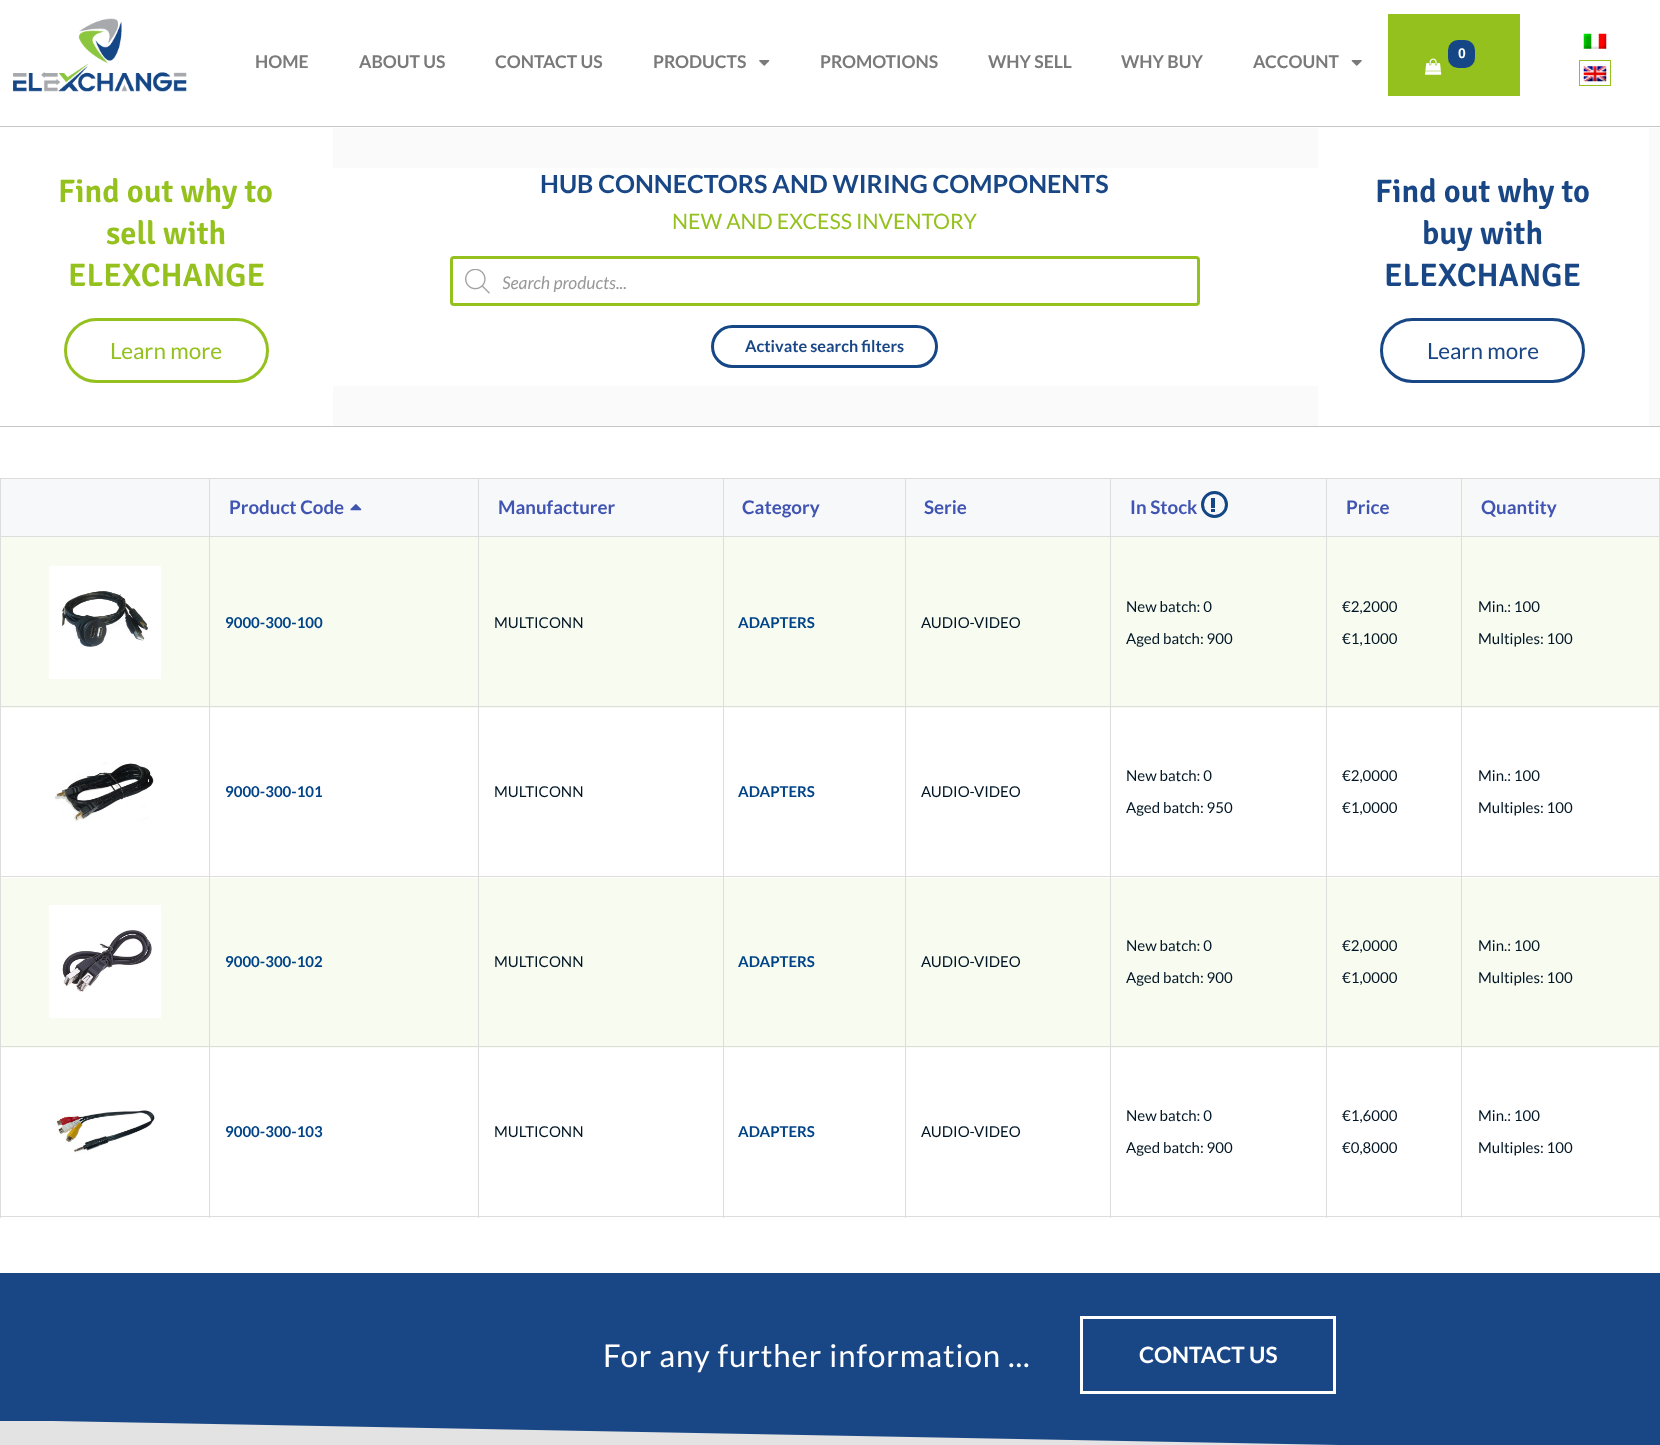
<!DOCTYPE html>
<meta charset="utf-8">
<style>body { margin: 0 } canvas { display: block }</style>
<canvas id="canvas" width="1660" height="1445"></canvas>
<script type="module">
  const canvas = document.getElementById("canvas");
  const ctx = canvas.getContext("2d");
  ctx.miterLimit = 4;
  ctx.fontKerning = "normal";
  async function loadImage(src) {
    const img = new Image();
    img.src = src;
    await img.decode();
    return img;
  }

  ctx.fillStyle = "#ffffff";
  ctx.fillRect(0, 0, 1660, 1445);
  ctx.drawImage(await loadImage("img1.png"), 13, 18, 174, 74);
  ctx.fillStyle = "#95c11f";
  ctx.fillRect(1388, 14, 132, 82);
  ctx.fillStyle = "#154787";
  ctx.beginPath();
  ctx.roundRect(1448, 40, 27, 28, 10);
  ctx.fill();
  ctx.font = "bold 14px Liberation Sans";
  ctx.fillStyle = "#ffffff";
  ctx.fillText("0", 1458, 58);
  ctx.drawImage(await loadImage("img2.png"), 1425, 58, 17, 17);
  ctx.font = "bold 17.5px Lato";
  ctx.fillStyle = "#7a7a7a";
  ctx.fillText("HOME", 255, 68);
  ctx.fillText("ABOUT US", 359, 68);
  ctx.fillText("CONTACT US", 495, 68);
  ctx.fillText("PRODUCTS", 653, 68);
  ctx.drawImage(await loadImage("img3.png"), 759, 60, 11, 6);
  ctx.fillText("PROMOTIONS", 820, 68);
  ctx.fillText("WHY SELL", 988, 68);
  ctx.fillText("WHY BUY", 1121, 68);
  ctx.fillText("ACCOUNT", 1253, 68);
  ctx.drawImage(await loadImage("img4.png"), 1351, 60, 11, 6);
  ctx.drawImage(await loadImage("img5.png"), 1583, 33, 24, 16);
  ctx.strokeStyle = "#95c11f";
  ctx.strokeRect(1579.5, 60.5, 31, 25);
  ctx.drawImage(await loadImage("img6.png"), 1583, 66, 24, 16);
  ctx.fillStyle = "#c6c6c6";
  ctx.fillRect(0, 126, 1660, 1);
  ctx.fillRect(0, 426, 1660, 1);
  ctx.fillStyle = "#fafafa";
  ctx.fillRect(333, 128, 1327, 298);
  ctx.font = "600 32.5px Signika";
  ctx.fillStyle = "#95c11f";
  ctx.fillText("Find out why to", 58, 202);
  ctx.fillText("sell with", 106, 244);
  ctx.fillText("ELEXCHANGE", 68, 286);
  ctx.beginPath();
  ctx.roundRect(65.5, 319.5, 202, 62, 31);
  ctx.lineWidth = 3;
  ctx.stroke();
  ctx.font = "22.5px Lato";
  ctx.fillText("Learn more", 110, 359);
  ctx.fillStyle = "#ffffff";
  ctx.fillRect(333, 168, 985, 218);
  ctx.font = "bold 25px Lato";
  ctx.fillStyle = "#194786";
  ctx.fillText("HUB CONNECTORS AND WIRING COMPONENTS", 540, 193);
  ctx.font = "21.25px Lato";
  ctx.fillStyle = "#95c11f";
  ctx.fillText("NEW AND EXCESS INVENTORY", 672, 229);
  ctx.beginPath();
  ctx.roundRect(451.5, 257.5, 747, 47, 2.5);
  ctx.stroke();
  ctx.drawImage(await loadImage("img7.png"), 465, 269, 25, 25);
  ctx.save();
  ctx.beginPath();
  ctx.rect(503, 271, 676, 22);
  ctx.clip();
  ctx.font = "italic 17.5px Lato";
  ctx.fillStyle = "#999999";
  ctx.fillText("Search products...", 502, 289);
  ctx.restore();
  ctx.beginPath();
  ctx.roundRect(712.5, 326.5, 224, 40, 20);
  ctx.strokeStyle = "#154787";
  ctx.stroke();
  ctx.font = "bold 16.25px Lato";
  ctx.fillStyle = "#194786";
  ctx.fillText("Activate search filters", 745, 352);
  ctx.fillStyle = "#ffffff";
  ctx.fillRect(1318, 128, 331, 298);
  ctx.font = "600 32.5px Signika";
  ctx.fillStyle = "#194786";
  ctx.fillText("Find out why to", 1375, 202);
  ctx.fillText("buy with", 1422, 244);
  ctx.fillText("ELEXCHANGE", 1384, 286);
  ctx.beginPath();
  ctx.roundRect(1381.5, 319.5, 202, 62, 31);
  ctx.strokeStyle = "#194786";
  ctx.stroke();
  ctx.font = "22.5px Lato";
  ctx.fillText("Learn more", 1427, 359);
  ctx.fillStyle = "#dddddd";
  ctx.fillRect(0, 478, 1660, 1);
  ctx.fillRect(0, 478, 1, 740);
  ctx.fillStyle = "#f6fbf0";
  ctx.fillRect(1, 479, 1658, 59);
  ctx.fillStyle = "#f7f8fa";
  ctx.fillRect(1, 479, 208, 57);
  ctx.fillStyle = "#dddddd";
  ctx.fillRect(209, 479, 1, 59);
  ctx.fillRect(1, 536, 209, 1);
  ctx.fillStyle = "#f7f8fa";
  ctx.fillRect(210, 479, 268, 57);
  ctx.fillStyle = "#dddddd";
  ctx.fillRect(478, 479, 1, 59);
  ctx.fillRect(210, 536, 269, 1);
  ctx.font = "bold 18.75px Lato";
  ctx.fillStyle = "#4054b2";
  ctx.fillText("Product Code", 229, 514);
  ctx.drawImage(await loadImage("img8.png"), 350, 504, 12, 7);
  ctx.fillStyle = "#f7f8fa";
  ctx.fillRect(479, 479, 244, 57);
  ctx.fillStyle = "#dddddd";
  ctx.fillRect(723, 479, 1, 59);
  ctx.fillRect(479, 536, 245, 1);
  ctx.fillStyle = "#4054b2";
  ctx.fillText("Manufacturer", 498, 514);
  ctx.fillStyle = "#f7f8fa";
  ctx.fillRect(724, 479, 181, 57);
  ctx.fillStyle = "#dddddd";
  ctx.fillRect(905, 479, 1, 59);
  ctx.fillRect(724, 536, 182, 1);
  ctx.fillStyle = "#4054b2";
  ctx.fillText("Category", 742, 514);
  ctx.fillStyle = "#f7f8fa";
  ctx.fillRect(906, 479, 204, 57);
  ctx.fillStyle = "#dddddd";
  ctx.fillRect(1110, 479, 1, 59);
  ctx.fillRect(906, 536, 205, 1);
  ctx.fillStyle = "#4054b2";
  ctx.fillText("Serie", 924, 514);
  ctx.fillStyle = "#f7f8fa";
  ctx.fillRect(1111, 479, 215, 57);
  ctx.fillStyle = "#dddddd";
  ctx.fillRect(1326, 479, 1, 59);
  ctx.fillRect(1111, 536, 217, 1);
  ctx.fillStyle = "#4054b2";
  ctx.fillText("In Stock", 1130, 514);
  ctx.beginPath();
  ctx.arc(1214.5, 504.5, 12, 0, Math.PI * 2);
  ctx.strokeStyle = "#134685";
  ctx.stroke();
  ctx.fillStyle = "#134685";
  ctx.fillRect(1211, 498, 4, 10);
  ctx.fillRect(1211, 509, 4, 3);
  ctx.fillStyle = "#f7f8fa";
  ctx.fillRect(1328, 479, 133, 57);
  ctx.fillStyle = "#dddddd";
  ctx.fillRect(1461, 479, 1, 59);
  ctx.fillRect(1328, 536, 135, 1);
  ctx.fillStyle = "#4054b2";
  ctx.fillText("Price", 1346, 514);
  ctx.fillStyle = "#f7f8fa";
  ctx.fillRect(1463, 479, 196, 57);
  ctx.fillStyle = "#dddddd";
  ctx.fillRect(1659, 479, 1, 739);
  ctx.fillRect(1463, 536, 197, 1);
  ctx.fillStyle = "#4054b2";
  ctx.fillText("Quantity", 1481, 514);
  ctx.fillStyle = "#f7fbf0";
  ctx.fillRect(1, 538, 1658, 170);
  ctx.fillStyle = "#dddddd";
  ctx.fillRect(209, 538, 1, 340);
  ctx.fillRect(1, 706, 209, 1);
  ctx.fillStyle = "#ffffff";
  ctx.fillRect(49, 566, 112, 113);
  ctx.drawImage(await loadImage("img9.png"), 62, 591, 86, 56);
  ctx.fillStyle = "#dddddd";
  ctx.fillRect(478, 538, 1, 340);
  ctx.fillRect(210, 706, 269, 1);
  ctx.font = "bold 15px Lato";
  ctx.fillStyle = "#004388";
  ctx.fillText("9000-300-100", 225, 628);
  ctx.fillStyle = "#dddddd";
  ctx.fillRect(723, 538, 1, 340);
  ctx.fillRect(479, 706, 245, 1);
  ctx.font = "15px Lato";
  ctx.fillStyle = "#001524";
  ctx.fillText("MULTICONN", 494, 628);
  ctx.fillStyle = "#dddddd";
  ctx.fillRect(905, 538, 1, 340);
  ctx.fillRect(724, 706, 182, 1);
  ctx.font = "bold 15px Lato";
  ctx.fillStyle = "#004388";
  ctx.fillText("ADAPTERS", 738, 628);
  ctx.fillStyle = "#dddddd";
  ctx.fillRect(1110, 538, 1, 340);
  ctx.fillRect(906, 706, 205, 1);
  ctx.font = "15px Lato";
  ctx.fillStyle = "#001524";
  ctx.fillText("AUDIO-VIDEO", 921, 628);
  ctx.fillStyle = "#dddddd";
  ctx.fillRect(1326, 538, 1, 340);
  ctx.fillRect(1111, 706, 217, 1);
  ctx.fillStyle = "#001524";
  ctx.fillText("New batch: 0", 1126, 612);
  ctx.fillText("Aged batch: 900", 1126, 644);
  ctx.fillStyle = "#dddddd";
  ctx.fillRect(1461, 538, 1, 340);
  ctx.fillRect(1328, 706, 332, 1);
  ctx.fillStyle = "#001524";
  ctx.fillText("€2,2000", 1342, 612);
  ctx.fillText("€1,1000", 1342, 644);
  ctx.fillText("Min.: 100", 1478, 612);
  ctx.fillText("Multiples: 100", 1478, 644);
  ctx.fillStyle = "#dddddd";
  ctx.fillRect(1, 876, 1659, 1);
  ctx.drawImage(await loadImage("img10.png"), 55, 762, 99, 61);
  ctx.font = "bold 15px Lato";
  ctx.fillStyle = "#004388";
  ctx.fillText("9000-300-101", 225, 797);
  ctx.font = "15px Lato";
  ctx.fillStyle = "#001524";
  ctx.fillText("MULTICONN", 494, 797);
  ctx.font = "bold 15px Lato";
  ctx.fillStyle = "#004388";
  ctx.fillText("ADAPTERS", 738, 797);
  ctx.font = "15px Lato";
  ctx.fillStyle = "#001524";
  ctx.fillText("AUDIO-VIDEO", 921, 797);
  ctx.fillText("New batch: 0", 1126, 781);
  ctx.fillText("Aged batch: 950", 1126, 813);
  ctx.fillText("€2,0000", 1342, 781);
  ctx.fillText("€1,0000", 1342, 813);
  ctx.fillText("Min.: 100", 1478, 781);
  ctx.fillText("Multiples: 100", 1478, 813);
  ctx.fillStyle = "#f7fbf0";
  ctx.fillRect(1, 878, 1658, 170);
  ctx.fillStyle = "#dddddd";
  ctx.fillRect(209, 878, 1, 340);
  ctx.fillRect(1, 1046, 209, 1);
  ctx.fillStyle = "#ffffff";
  ctx.fillRect(49, 905, 112, 113);
  ctx.drawImage(await loadImage("img11.png"), 62, 930, 90, 62);
  ctx.fillStyle = "#dddddd";
  ctx.fillRect(478, 878, 1, 340);
  ctx.fillRect(210, 1046, 269, 1);
  ctx.font = "bold 15px Lato";
  ctx.fillStyle = "#004388";
  ctx.fillText("9000-300-102", 225, 967);
  ctx.fillStyle = "#dddddd";
  ctx.fillRect(723, 878, 1, 340);
  ctx.fillRect(479, 1046, 245, 1);
  ctx.font = "15px Lato";
  ctx.fillStyle = "#001524";
  ctx.fillText("MULTICONN", 494, 967);
  ctx.fillStyle = "#dddddd";
  ctx.fillRect(905, 878, 1, 340);
  ctx.fillRect(724, 1046, 182, 1);
  ctx.font = "bold 15px Lato";
  ctx.fillStyle = "#004388";
  ctx.fillText("ADAPTERS", 738, 967);
  ctx.fillStyle = "#dddddd";
  ctx.fillRect(1110, 878, 1, 340);
  ctx.fillRect(906, 1046, 205, 1);
  ctx.font = "15px Lato";
  ctx.fillStyle = "#001524";
  ctx.fillText("AUDIO-VIDEO", 921, 967);
  ctx.fillStyle = "#dddddd";
  ctx.fillRect(1326, 878, 1, 340);
  ctx.fillRect(1111, 1046, 217, 1);
  ctx.fillStyle = "#001524";
  ctx.fillText("New batch: 0", 1126, 951);
  ctx.fillText("Aged batch: 900", 1126, 983);
  ctx.fillStyle = "#dddddd";
  ctx.fillRect(1461, 878, 1, 340);
  ctx.fillRect(1328, 1046, 332, 1);
  ctx.fillStyle = "#001524";
  ctx.fillText("€2,0000", 1342, 951);
  ctx.fillText("€1,0000", 1342, 983);
  ctx.fillText("Min.: 100", 1478, 951);
  ctx.fillText("Multiples: 100", 1478, 983);
  ctx.fillText("New batch: 0", 1126, 1121);
  ctx.fillText("Aged batch: 900", 1126, 1153);
  ctx.fillStyle = "#dddddd";
  ctx.fillRect(1, 1216, 1659, 1);
  ctx.drawImage(await loadImage("img12.png"), 56, 1110, 99, 44);
  ctx.font = "bold 15px Lato";
  ctx.fillStyle = "#004388";
  ctx.fillText("9000-300-103", 225, 1137);
  ctx.font = "15px Lato";
  ctx.fillStyle = "#001524";
  ctx.fillText("MULTICONN", 494, 1137);
  ctx.font = "bold 15px Lato";
  ctx.fillStyle = "#004388";
  ctx.fillText("ADAPTERS", 738, 1137);
  ctx.font = "15px Lato";
  ctx.fillStyle = "#001524";
  ctx.fillText("AUDIO-VIDEO", 921, 1137);
  ctx.fillText("€1,6000", 1342, 1121);
  ctx.fillText("€0,8000", 1342, 1153);
  ctx.fillText("Min.: 100", 1478, 1121);
  ctx.fillText("Multiples: 100", 1478, 1153);
  ctx.fillStyle = "#194786";
  ctx.fillRect(0, 1273, 1660, 172);
  ctx.letterSpacing = "0.9px";
  ctx.font = "31.25px Lato";
  ctx.fillStyle = "#ffffff";
  ctx.fillText("For any further information ...", 603, 1367);
  ctx.strokeStyle = "#ffffff";
  ctx.strokeRect(1081.5, 1317.5, 253, 75);
  ctx.letterSpacing = "0px";
  ctx.font = "bold 22.5px Lato";
  ctx.fillText("CONTACT US", 1139, 1363);
  ctx.save();
  ctx.beginPath();
  ctx.rect(0, 1421, 1660, 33);
  ctx.clip();
  ctx.fillStyle = "#e3e3e3";
  ctx.beginPath();
  ctx.moveTo(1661, 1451);
  ctx.lineTo(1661, 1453);
  ctx.lineTo(-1, 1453);
  ctx.lineTo(-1, 1420);
  ctx.closePath();
  ctx.fill();
  ctx.restore();
</script>
